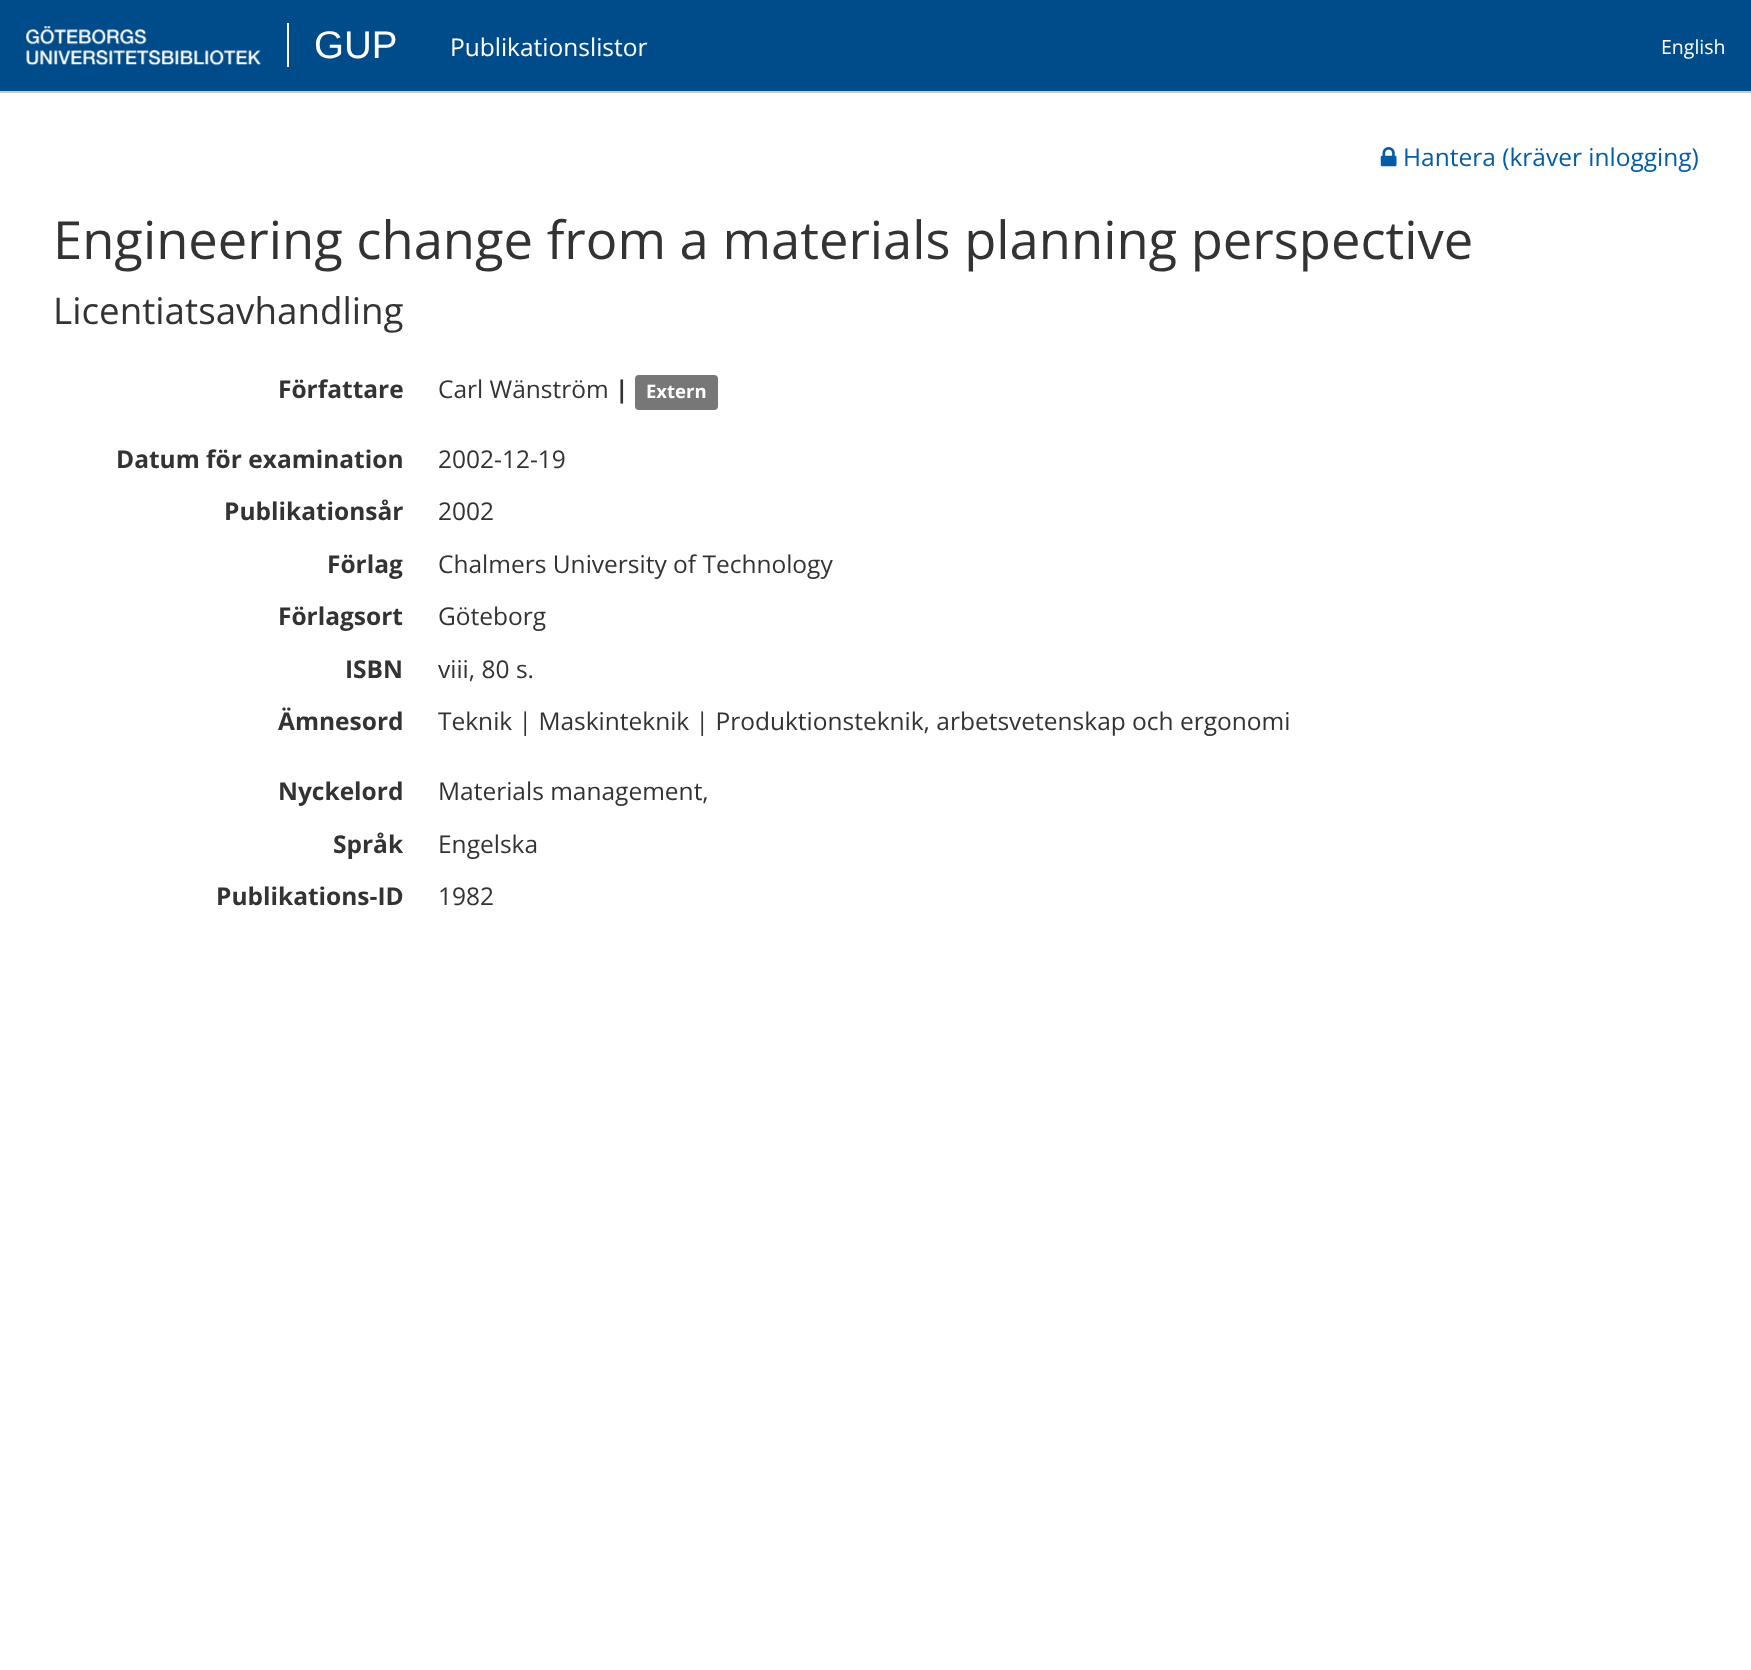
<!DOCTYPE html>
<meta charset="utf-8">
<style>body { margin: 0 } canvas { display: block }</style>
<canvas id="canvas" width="1751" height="1670"></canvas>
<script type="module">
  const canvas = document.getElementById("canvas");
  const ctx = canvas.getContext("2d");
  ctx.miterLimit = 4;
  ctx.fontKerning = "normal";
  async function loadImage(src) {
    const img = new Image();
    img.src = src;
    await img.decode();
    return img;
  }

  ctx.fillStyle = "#ffffff";
  ctx.fillRect(0, 0, 1751, 1670);
  ctx.fillStyle = "#004b89";
  ctx.fillRect(0, 0, 1751, 91);
  ctx.fillStyle = "#cccccc";
  ctx.fillRect(0, 91, 1751, 2);
  ctx.drawImage(await loadImage("img1.png"), 26, 26, 235, 40);
  ctx.fillStyle = "#ffffff";
  ctx.fillRect(287, 23, 2, 44);
  ctx.font = "38.5px Liberation Sans";
  ctx.fillText("GUP", 314, 58);
  ctx.font = "24.5px Open Sans";
  ctx.fillText("Publikationslistor", 450, 56);
  ctx.font = "19.5px Open Sans";
  ctx.fillText("English", 1661, 54);
  ctx.drawImage(await loadImage("img2.png"), 1380, 147, 17, 20);
  ctx.font = "24.5px Open Sans";
  ctx.fillStyle = "#025da6";
  ctx.fillText("Hantera (kräver inlogging)", 1403, 166);
  ctx.font = "52.5px Open Sans";
  ctx.fillStyle = "#333333";
  ctx.fillText("Engineering change from a materials planning perspective", 53, 259);
  ctx.font = "36.75px Open Sans";
  ctx.fillText("Licentiatsavhandling", 53, 324);
  ctx.font = "bold 24.5px Open Sans";
  ctx.fillText("Författare", 278, 398);
  ctx.font = "24.5px Open Sans";
  ctx.fillText("Carl Wänström", 438, 398);
  ctx.font = "bold 24.5px Open Sans";
  ctx.fillText("|", 615, 398);
  ctx.fillStyle = "#777777";
  ctx.beginPath();
  ctx.roundRect(635, 375, 83, 35, 4);
  ctx.fill();
  ctx.font = "bold 18.5px Open Sans";
  ctx.fillStyle = "#ffffff";
  ctx.fillText("Extern", 646, 398);
  ctx.font = "bold 24.5px Open Sans";
  ctx.fillStyle = "#333333";
  ctx.fillText("Datum för examination", 116, 468);
  ctx.font = "24.5px Open Sans";
  ctx.fillText("2002-12-19", 438, 468);
  ctx.font = "bold 24.5px Open Sans";
  ctx.fillText("Publikationsår", 224, 520);
  ctx.font = "24.5px Open Sans";
  ctx.fillText("2002", 438, 520);
  ctx.font = "bold 24.5px Open Sans";
  ctx.fillText("Förlag", 327, 573);
  ctx.font = "24.5px Open Sans";
  ctx.fillText("Chalmers University of Technology", 438, 573);
  ctx.font = "bold 24.5px Open Sans";
  ctx.fillText("Förlagsort", 278, 625);
  ctx.font = "24.5px Open Sans";
  ctx.fillText("Göteborg", 438, 625);
  ctx.font = "bold 24.5px Open Sans";
  ctx.fillText("ISBN", 345, 678);
  ctx.font = "24.5px Open Sans";
  ctx.fillText("viii, 80 s.", 438, 678);
  ctx.font = "bold 24.5px Open Sans";
  ctx.fillText("Ämnesord", 278, 730);
  ctx.font = "24.5px Open Sans";
  ctx.fillText("Teknik | Maskinteknik | Produktionsteknik, arbetsvetenskap och ergonomi", 438, 730);
  ctx.font = "bold 24.5px Open Sans";
  ctx.fillText("Nyckelord", 278, 800);
  ctx.font = "24.5px Open Sans";
  ctx.fillText("Materials management,", 438, 800);
  ctx.font = "bold 24.5px Open Sans";
  ctx.fillText("Språk", 333, 853);
  ctx.font = "24.5px Open Sans";
  ctx.fillText("Engelska", 438, 853);
  ctx.font = "bold 24.5px Open Sans";
  ctx.fillText("Publikations-ID", 216, 905);
  ctx.font = "24.5px Open Sans";
  ctx.fillText("1982", 438, 905);
</script>
